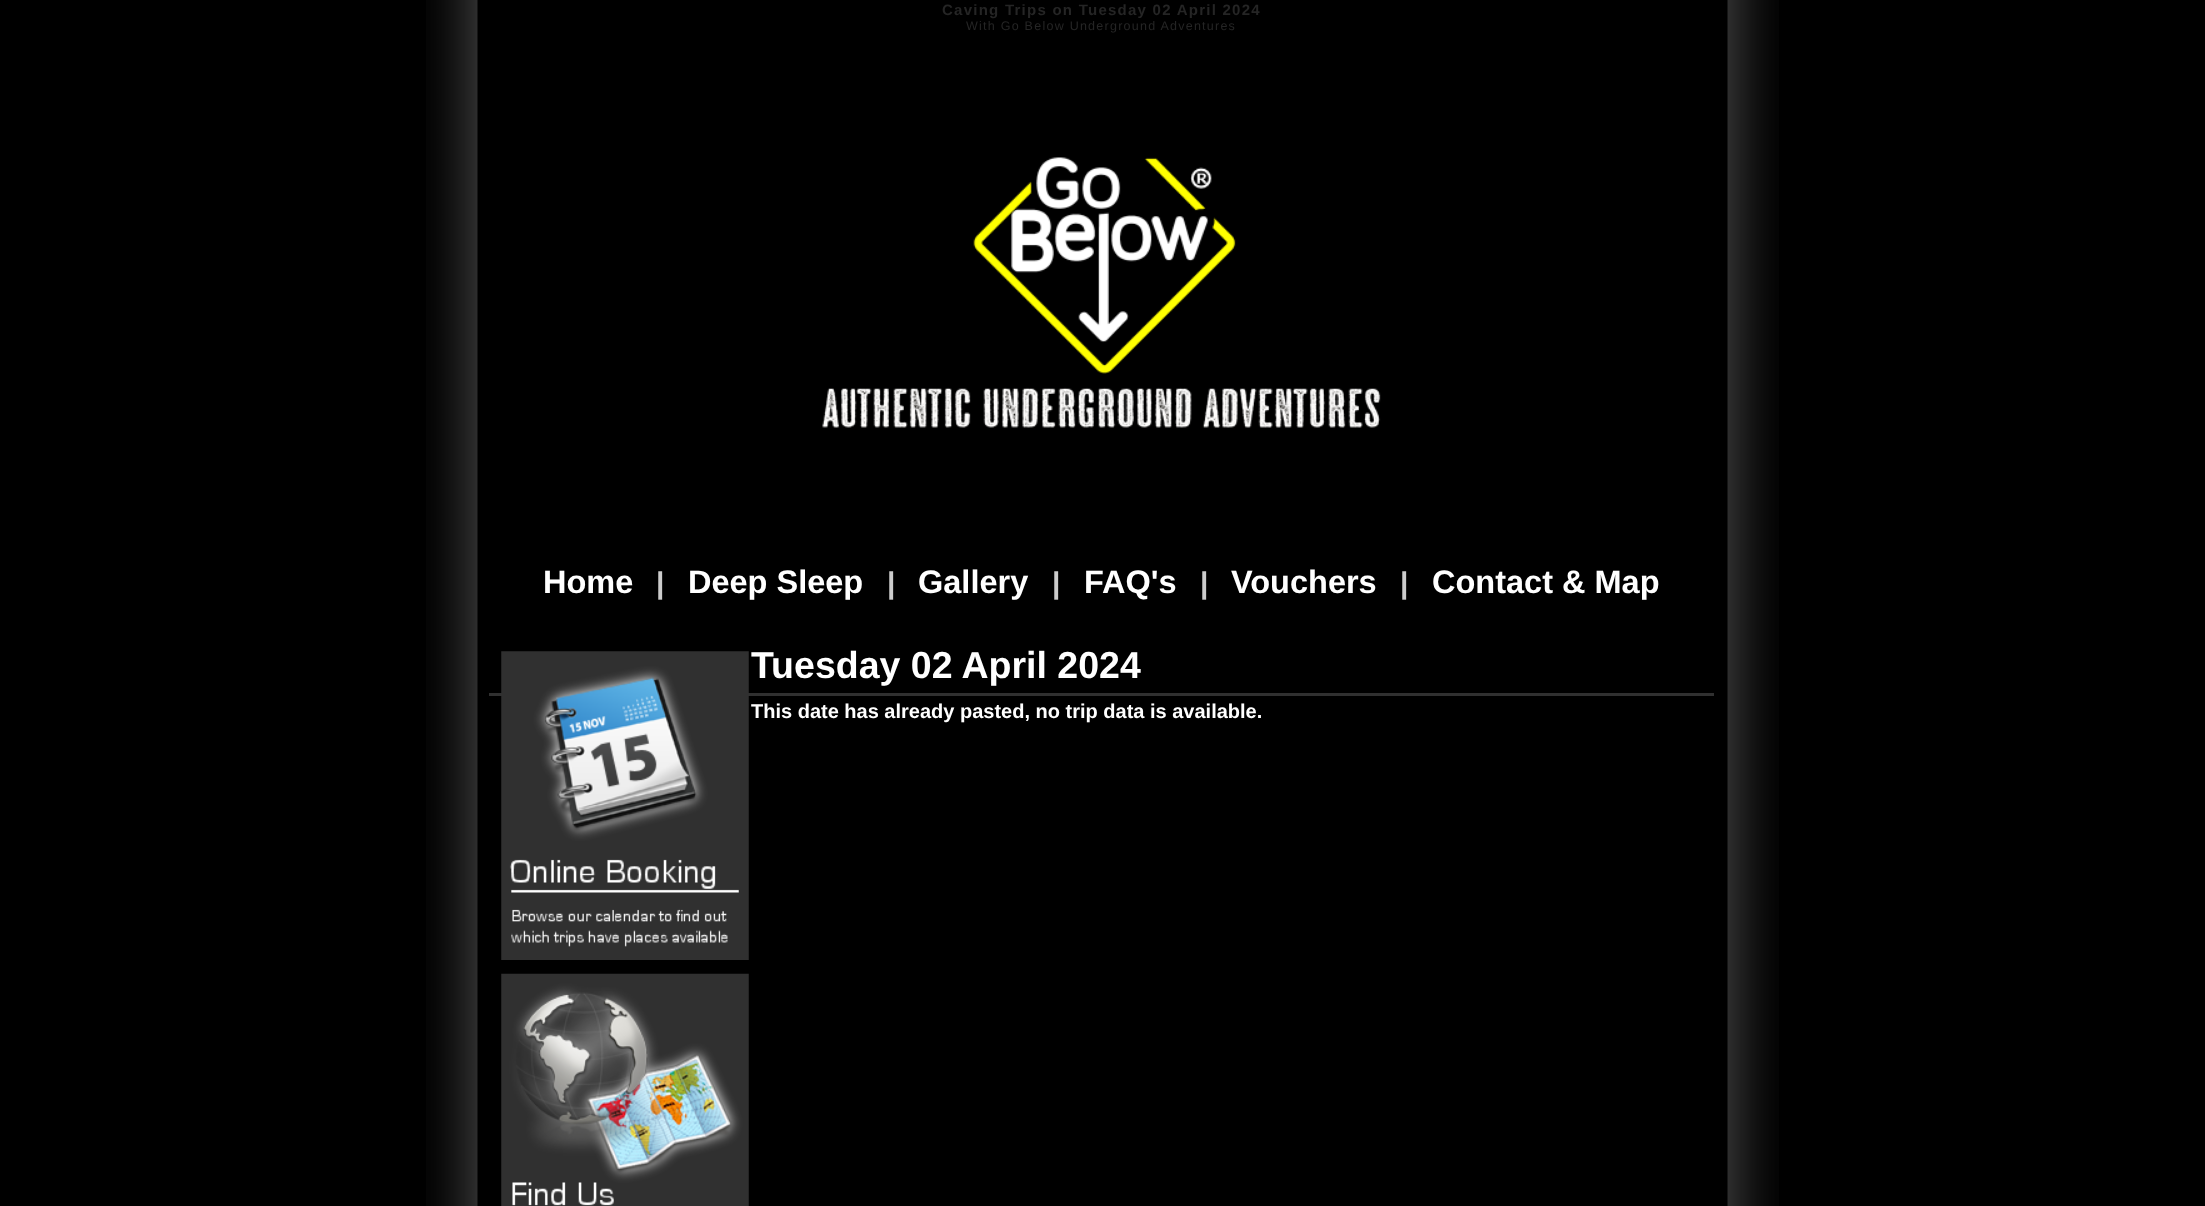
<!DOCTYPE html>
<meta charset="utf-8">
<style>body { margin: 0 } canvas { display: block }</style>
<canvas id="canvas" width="2205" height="1206"></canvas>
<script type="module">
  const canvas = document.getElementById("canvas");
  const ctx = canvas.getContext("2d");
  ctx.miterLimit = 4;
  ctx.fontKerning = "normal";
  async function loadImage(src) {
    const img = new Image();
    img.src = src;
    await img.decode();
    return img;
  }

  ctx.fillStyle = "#000000";
  ctx.fillRect(0, 0, 2205, 1206);
  ctx.drawImage(await loadImage("img1.png"), 426, 0, 1353, 1206);
  ctx.letterSpacing = "1.25px";
  ctx.font = "bold 15px Liberation Sans";
  ctx.fillStyle = "#252525";
  ctx.fillText("Caving Trips on Tuesday 02 April 2024", 942, 15);
  ctx.font = "12.5px Liberation Sans";
  ctx.fillText("With Go Below Underground Adventures", 966, 30);
  ctx.drawImage(await loadImage("img2.png"), 822, 157, 559, 271);
  ctx.letterSpacing = "0px";
  ctx.font = "bold 32.5px Liberation Sans";
  ctx.fillStyle = "#ffffff";
  ctx.fillText("Home", 543, 593);
  ctx.font = "bold 30px Liberation Sans";
  ctx.fillStyle = "#cccccc";
  ctx.fillText("|", 656, 593);
  ctx.font = "bold 32.5px Liberation Sans";
  ctx.fillStyle = "#ffffff";
  ctx.fillText("Deep Sleep", 688, 593);
  ctx.font = "bold 30px Liberation Sans";
  ctx.fillStyle = "#cccccc";
  ctx.fillText("|", 887, 593);
  ctx.font = "bold 32.5px Liberation Sans";
  ctx.fillStyle = "#ffffff";
  ctx.fillText("Gallery", 918, 593);
  ctx.font = "bold 30px Liberation Sans";
  ctx.fillStyle = "#cccccc";
  ctx.fillText("|", 1052, 593);
  ctx.font = "bold 32.5px Liberation Sans";
  ctx.fillStyle = "#ffffff";
  ctx.fillText("FAQ's", 1084, 593);
  ctx.font = "bold 30px Liberation Sans";
  ctx.fillStyle = "#cccccc";
  ctx.fillText("|", 1200, 593);
  ctx.font = "bold 32.5px Liberation Sans";
  ctx.fillStyle = "#ffffff";
  ctx.fillText("Vouchers", 1231, 593);
  ctx.font = "bold 30px Liberation Sans";
  ctx.fillStyle = "#cccccc";
  ctx.fillText("|", 1400, 593);
  ctx.font = "bold 32.5px Liberation Sans";
  ctx.fillStyle = "#ffffff";
  ctx.fillText("Contact & Map", 1432, 593);
  ctx.fillStyle = "#303030";
  ctx.fillRect(489, 693, 1225, 3);
  ctx.drawImage(await loadImage("img3.png"), 501, 651, 248, 309);
  ctx.drawImage(await loadImage("img4.png"), 501, 973, 248, 233);
  ctx.font = "bold 37.5px Liberation Sans";
  ctx.fillStyle = "#ffffff";
  ctx.fillText("Tuesday 02 April 2024", 751, 678);
  ctx.font = "bold 20px Liberation Sans";
  ctx.fillText("This date has already pasted, no trip data is available.", 751, 718);
</script>
